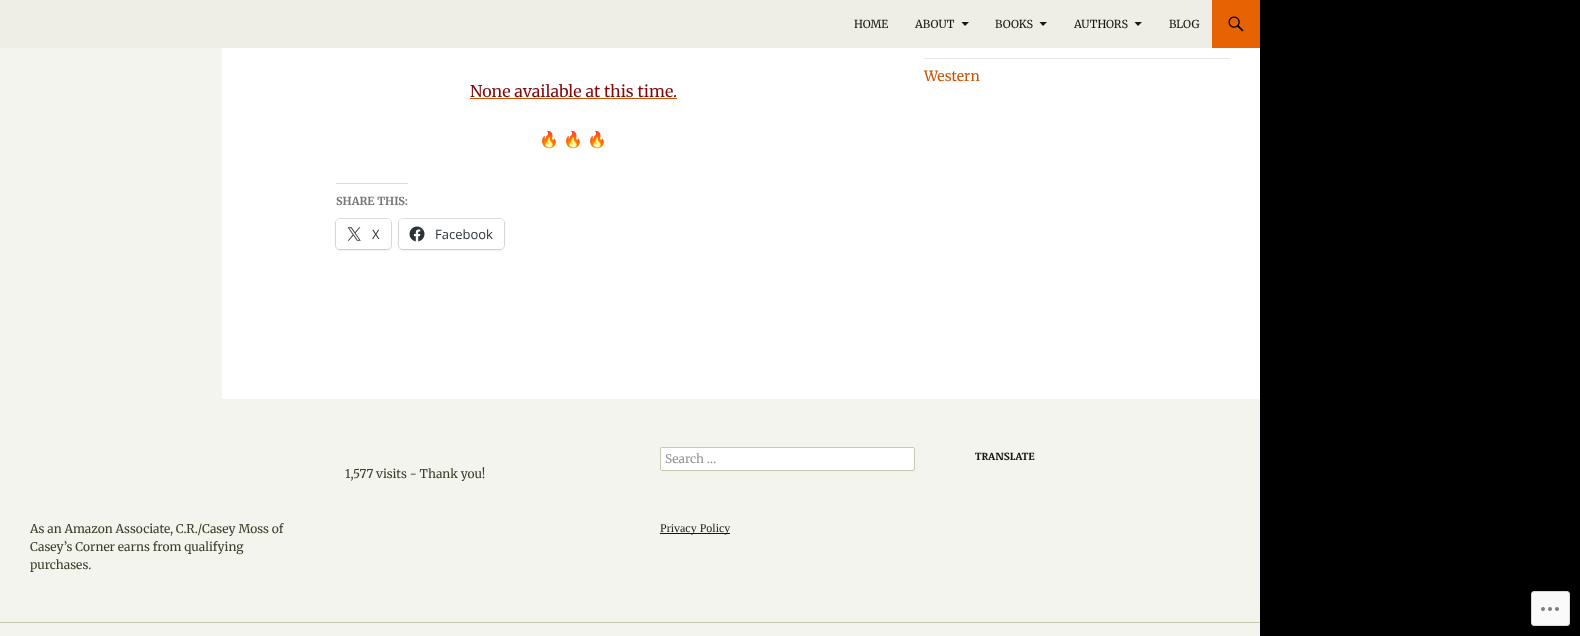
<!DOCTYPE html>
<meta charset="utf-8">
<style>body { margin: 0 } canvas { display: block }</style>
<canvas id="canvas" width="1580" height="636"></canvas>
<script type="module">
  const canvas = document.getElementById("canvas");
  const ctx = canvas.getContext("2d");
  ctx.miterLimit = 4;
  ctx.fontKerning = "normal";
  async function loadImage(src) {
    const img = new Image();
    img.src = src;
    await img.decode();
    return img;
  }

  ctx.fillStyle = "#000000";
  ctx.fillRect(0, 0, 1580, 636);
  ctx.fillStyle = "#ffffff";
  ctx.fillRect(222, 48, 1038, 351);
  ctx.fillStyle = "#eeeee6";
  ctx.fillRect(0, 0, 1212, 48);
  ctx.font = "11px Merriweather";
  ctx.fillStyle = "#181810";
  ctx.fillText("HOME", 854, 28);
  ctx.fillText("ABOUT", 915, 28);
  ctx.beginPath();
  ctx.moveTo(961.5, 22);
  ctx.lineTo(969, 22);
  ctx.lineTo(965, 26);
  ctx.closePath();
  ctx.fill();
  ctx.fillText("BOOKS", 995, 28);
  ctx.beginPath();
  ctx.moveTo(1039.5, 22);
  ctx.lineTo(1047, 22);
  ctx.lineTo(1043, 26);
  ctx.closePath();
  ctx.fill();
  ctx.fillText("AUTHORS", 1074, 28);
  ctx.beginPath();
  ctx.moveTo(1134.5, 22);
  ctx.lineTo(1142, 22);
  ctx.lineTo(1138, 26);
  ctx.closePath();
  ctx.fill();
  ctx.fillText("BLOG", 1169, 28);
  ctx.fillStyle = "#e76203";
  ctx.fillRect(1212, 0, 48, 48);
  ctx.drawImage(await loadImage("img1.png"), 1228, 16, 16, 16);
  ctx.fillStyle = "#f4f4ef";
  ctx.fillRect(0, 48, 222, 351);
  ctx.fillStyle = "#e6e6e6";
  ctx.fillRect(924, 58, 306, 1);
  ctx.font = "14px Merriweather";
  ctx.fillStyle = "#c85503";
  ctx.fillText("Western", 924, 81);
  ctx.font = "16px Merriweather";
  ctx.fillStyle = "#800909";
  ctx.fillText("None available at this time.", 470, 97);
  ctx.fillStyle = "#c85503";
  ctx.fillRect(470, 98, 207, 1);
  ctx.font = "16px Noto Color Emoji";
  ctx.fillStyle = "#2b2b2b";
  ctx.fillText("🔥", 539, 145);
  ctx.fillText("🔥", 563, 145);
  ctx.fillText("🔥", 587, 145);
  ctx.fillStyle = "#dcdcde";
  ctx.fillRect(336, 183, 72, 1);
  ctx.font = "bold 11px Merriweather";
  ctx.fillStyle = "#767676";
  ctx.fillText("SHARE THIS:", 336, 205);
  ctx.beginPath();
  ctx.roundRect(335.5, 218.5, 56, 31, 4.5);
  ctx.strokeStyle = "#e0e0e0";
  ctx.stroke();
  ctx.fillStyle = "rgba(0, 0, 0, 0.12)";
  ctx.filter = "blur(1px)";
  ctx.beginPath();
  ctx.roundRect(336, 220, 55, 30, 4);
  ctx.fill();
  ctx.filter = "none";
  ctx.fillStyle = "#ffffff";
  ctx.beginPath();
  ctx.roundRect(336, 219, 55, 30, 4);
  ctx.fill();
  ctx.drawImage(await loadImage("img2.png"), 347, 227, 14, 14);
  ctx.font = "13px Open Sans";
  ctx.fillStyle = "#2c3338";
  ctx.fillText("X", 372, 239);
  ctx.beginPath();
  ctx.roundRect(398.5, 218.5, 106, 31, 4.5);
  ctx.stroke();
  ctx.fillStyle = "rgba(0, 0, 0, 0.12)";
  ctx.filter = "blur(1px)";
  ctx.beginPath();
  ctx.roundRect(399, 220, 105, 30, 4);
  ctx.fill();
  ctx.filter = "none";
  ctx.fillStyle = "#ffffff";
  ctx.beginPath();
  ctx.roundRect(399, 219, 105, 30, 4);
  ctx.fill();
  ctx.drawImage(await loadImage("img3.png"), 409, 226, 16, 16);
  ctx.fillStyle = "#2c3338";
  ctx.fillText("Facebook", 435, 239);
  ctx.fillStyle = "#f4f4ef";
  ctx.fillRect(0, 399, 1260, 237);
  ctx.fillStyle = "#ffffff";
  ctx.beginPath();
  ctx.roundRect(660.5, 447.5, 254, 23, 1.5);
  ctx.fill();
  ctx.strokeStyle = "#c9c9b0";
  ctx.stroke();
  ctx.font = "12px Merriweather";
  ctx.fillStyle = "#939393";
  ctx.fillText("Search …", 665, 463);
  ctx.font = "bold 11px Noticia Text";
  ctx.fillStyle = "#181810";
  ctx.fillText("TRANSLATE", 975, 460);
  ctx.font = "12px Merriweather";
  ctx.fillStyle = "#3d3d28";
  ctx.fillText("1,577 visits - Thank you!", 345, 478);
  ctx.fillText("As an Amazon Associate, C.R./Casey Moss of", 30, 533);
  ctx.fillText("Casey’s Corner earns from qualifying", 30, 551);
  ctx.fillText("purchases.", 30, 569);
  ctx.fillStyle = "#181810";
  ctx.fillRect(660, 533, 70, 1);
  ctx.font = "12px Liberation Serif";
  ctx.fillText("Privacy Policy", 660, 532);
  ctx.fillStyle = "#c9c9b0";
  ctx.fillRect(0, 622, 1260, 1);
  ctx.fillStyle = "#fafafa";
  ctx.beginPath();
  ctx.roundRect(1531.5, 591.5, 38, 34, 2.5);
  ctx.fill();
  ctx.strokeStyle = "#d8d8da";
  ctx.stroke();
  ctx.drawImage(await loadImage("img4.png"), 1541, 607, 18, 4);
</script>
